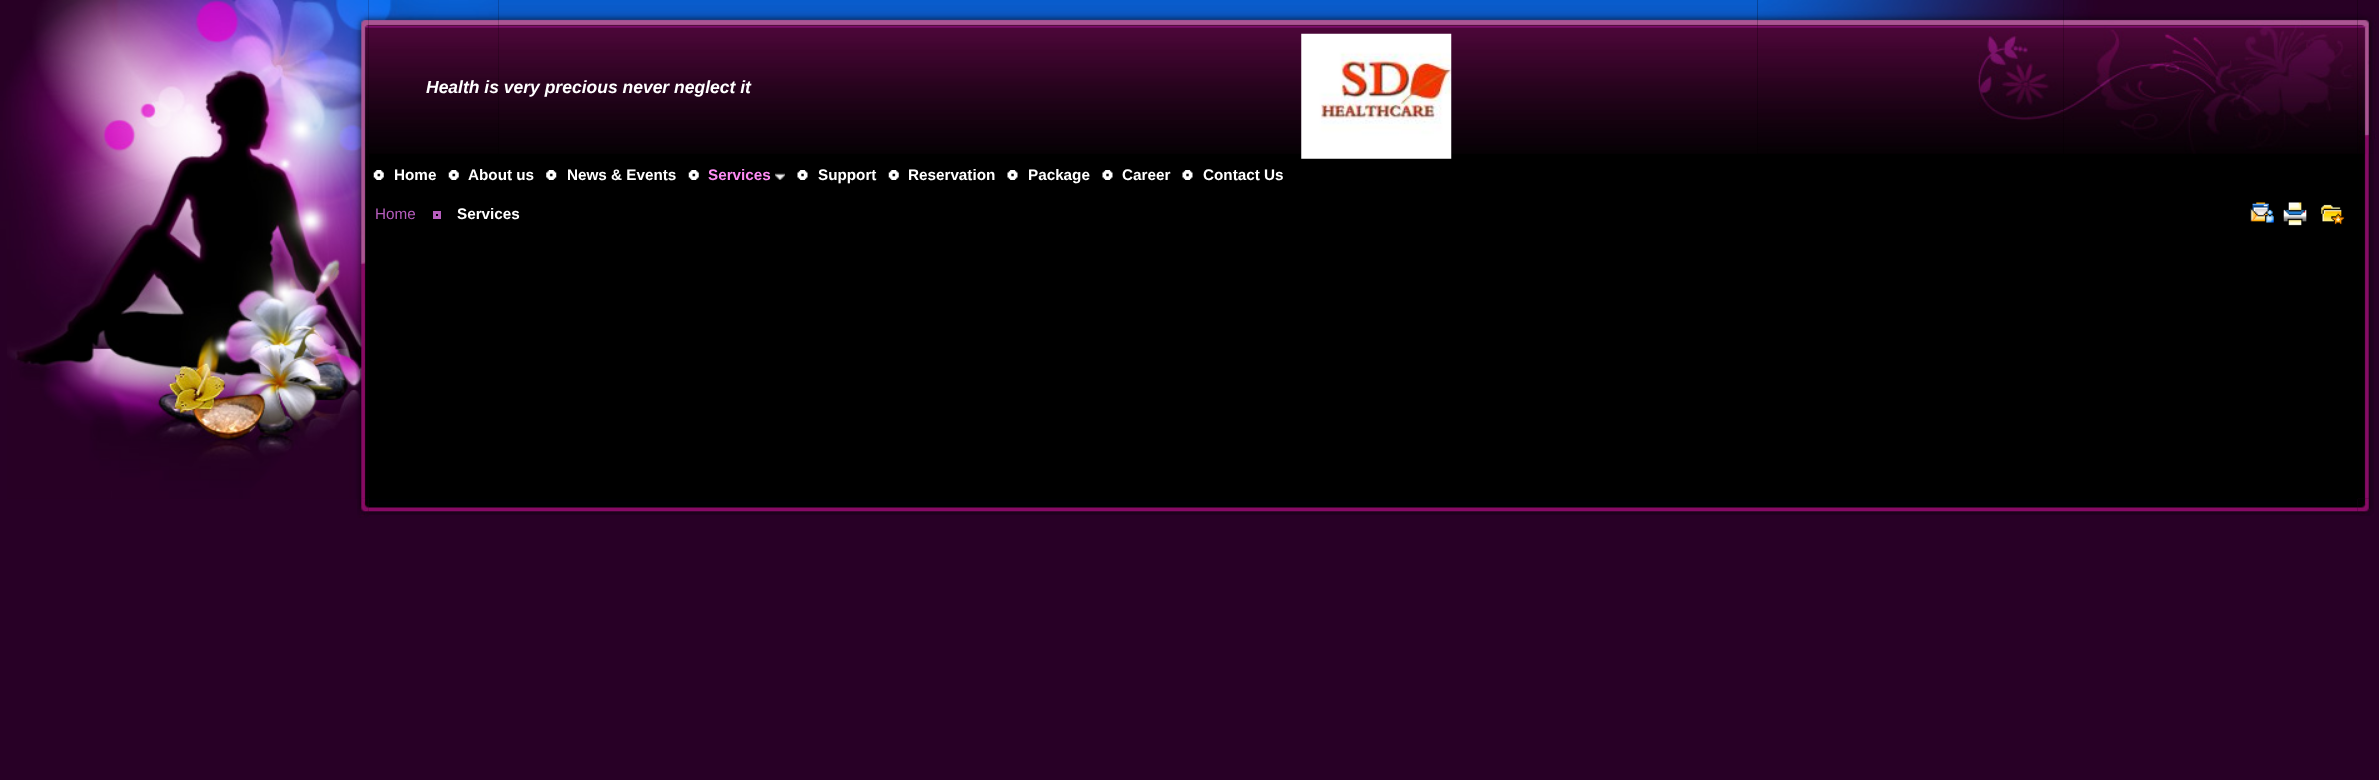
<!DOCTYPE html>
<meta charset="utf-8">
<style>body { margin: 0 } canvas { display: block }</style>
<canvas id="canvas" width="2379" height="780"></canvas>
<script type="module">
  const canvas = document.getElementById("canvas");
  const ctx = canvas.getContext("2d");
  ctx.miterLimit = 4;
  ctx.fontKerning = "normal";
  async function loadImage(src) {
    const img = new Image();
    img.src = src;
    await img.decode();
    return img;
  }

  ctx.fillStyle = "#280026";
  ctx.fillRect(0, 0, 2379, 780);
  ctx.drawImage(await loadImage("img1.png"), 357, 0, 12, 499);
  ctx.drawImage(await loadImage("img2.png"), 0, 0, 369, 240);
  ctx.drawImage(await loadImage("img3.png"), 7, 240, 362, 259);
  ctx.fillStyle = "#000000";
  ctx.fillRect(369, 0, 1989, 499);
  ctx.drawImage(await loadImage("img8.png"), 498, 0, 1260, 154);
  ctx.drawImage(await loadImage("img7.png"), 368, 0, 131, 154);
  ctx.font = "italic bold 17.5px Liberation Sans";
  ctx.fillStyle = "#ffffff";
  ctx.fillText("Health is very precious never neglect it", 426, 93);
  ctx.drawImage(await loadImage("img4.png"), 1301, 33, 151, 126);
  ctx.drawImage(await loadImage("img5.png"), 2358, 153, 16, 346);
  ctx.drawImage(await loadImage("img9.png"), 1757, 0, 307, 154);
  ctx.drawImage(await loadImage("img10.png"), 2063, 0, 295, 154);
  ctx.drawImage(await loadImage("img6.png"), 2357, 0, 20, 154);
  ctx.drawImage(await loadImage("img11.png"), 373, 170, 11, 10);
  ctx.font = "bold 15.25px Liberation Sans";
  ctx.fillText("Home", 394, 180);
  ctx.drawImage(await loadImage("img12.png"), 448, 170, 11, 10);
  ctx.fillText("About us", 468, 180);
  ctx.drawImage(await loadImage("img13.png"), 546, 170, 11, 10);
  ctx.fillText("News & Events", 567, 180);
  ctx.drawImage(await loadImage("img11.png"), 688, 170, 11, 10);
  ctx.fillStyle = "#fe8bf4";
  ctx.fillText("Services", 708, 180);
  ctx.drawImage(await loadImage("img14.png"), 775, 173, 10, 7);
  ctx.drawImage(await loadImage("img15.png"), 797, 170, 11, 10);
  ctx.fillStyle = "#ffffff";
  ctx.fillText("Support", 818, 180);
  ctx.drawImage(await loadImage("img11.png"), 888, 170, 11, 10);
  ctx.fillText("Reservation", 908, 180);
  ctx.drawImage(await loadImage("img15.png"), 1007, 170, 11, 10);
  ctx.fillText("Package", 1028, 180);
  ctx.drawImage(await loadImage("img15.png"), 1102, 170, 11, 10);
  ctx.fillText("Career", 1122, 180);
  ctx.drawImage(await loadImage("img15.png"), 1182, 170, 11, 10);
  ctx.fillText("Contact Us", 1203, 180);
  ctx.font = "15.25px Liberation Sans";
  ctx.fillStyle = "#b65dbd";
  ctx.fillText("Home", 375, 219);
  ctx.strokeStyle = "#b65dbd";
  ctx.lineWidth = 3;
  ctx.strokeRect(434.5, 212.5, 5, 5);
  ctx.font = "bold 15.25px Liberation Sans";
  ctx.fillStyle = "#ffffff";
  ctx.fillText("Services", 457, 219);
  ctx.drawImage(await loadImage("img16.png"), 2250, 202, 24, 21);
  ctx.drawImage(await loadImage("img17.png"), 2283, 202, 24, 24);
  ctx.drawImage(await loadImage("img18.png"), 2321, 204, 24, 21);
  ctx.drawImage(await loadImage("img20.png"), 368, 499, 1990, 16);
  ctx.drawImage(await loadImage("img19.png"), 357, 499, 12, 19);
  ctx.drawImage(await loadImage("img21.png"), 2357, 498, 17, 18);
</script>
